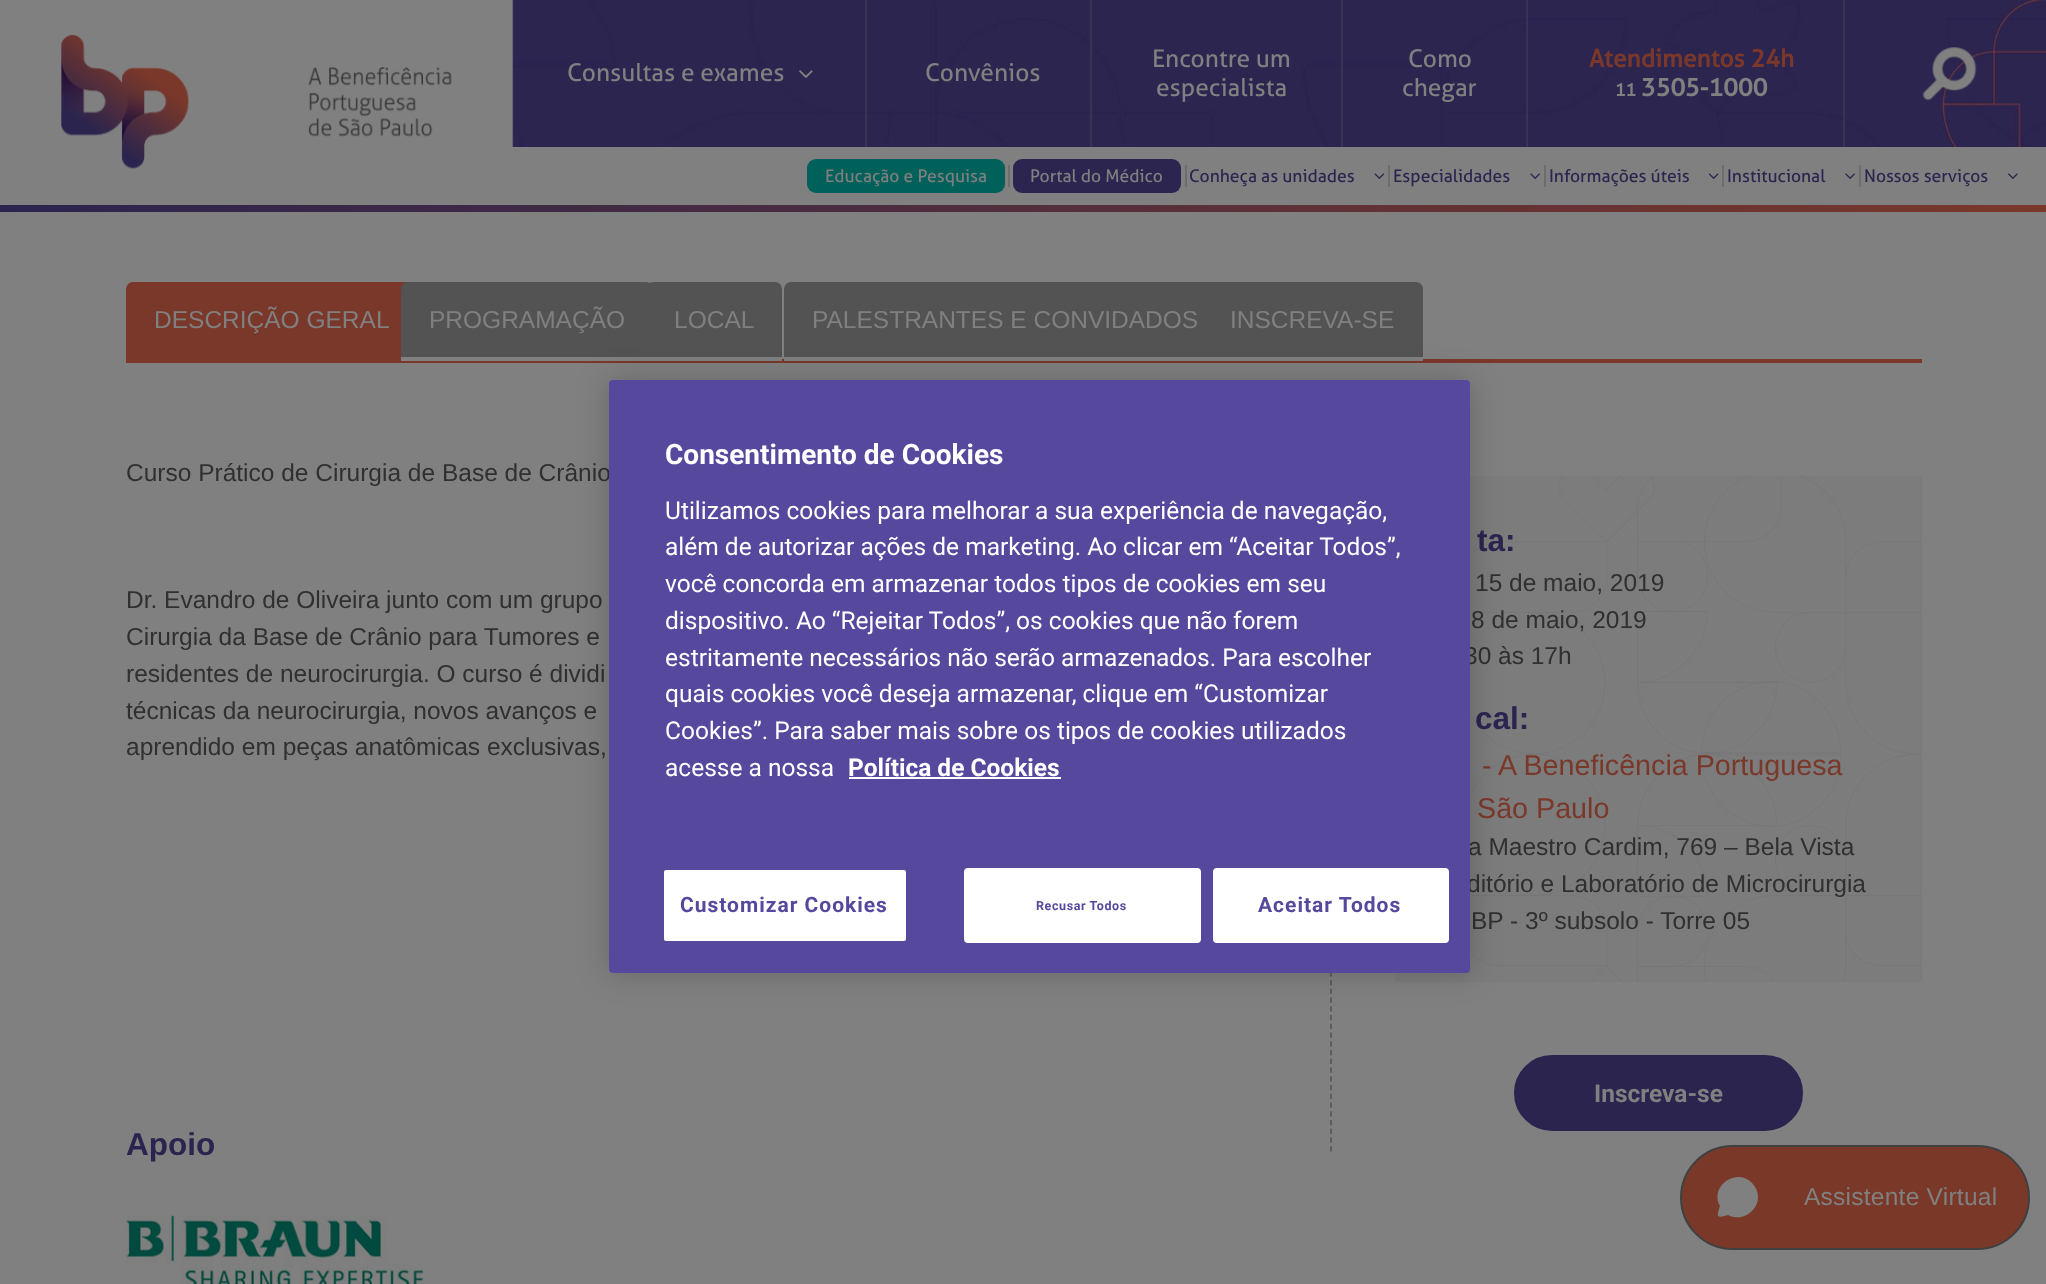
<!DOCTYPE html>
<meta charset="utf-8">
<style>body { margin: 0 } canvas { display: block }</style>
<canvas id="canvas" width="2046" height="1284"></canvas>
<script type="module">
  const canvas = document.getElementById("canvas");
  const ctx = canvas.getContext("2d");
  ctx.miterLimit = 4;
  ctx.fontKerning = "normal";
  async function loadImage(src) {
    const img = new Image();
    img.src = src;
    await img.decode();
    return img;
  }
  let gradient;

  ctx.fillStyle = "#808080";
  ctx.fillRect(0, 0, 2046, 1284);
  ctx.drawImage(await loadImage("img1.png"), 61, 35, 391, 134);
  ctx.drawImage(await loadImage("img2.png"), 512, 0, 1534, 147);
  ctx.fillStyle = "#373354";
  ctx.fillRect(865, 0, 2, 147);
  ctx.font = "24.5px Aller";
  ctx.fillStyle = "#808080";
  ctx.fillText("Consultas e exames", 567, 81);
  ctx.drawImage(await loadImage("img3.png"), 799, 70, 14, 9);
  ctx.fillStyle = "#373354";
  ctx.fillRect(1090, 0, 2, 147);
  ctx.fillStyle = "#808080";
  ctx.fillText("Convênios", 925, 81);
  ctx.fillStyle = "#373354";
  ctx.fillRect(1341, 0, 2, 147);
  ctx.fillStyle = "#808080";
  ctx.fillText("Encontre um", 1152, 67);
  ctx.fillText("especialista", 1156, 96);
  ctx.fillStyle = "#373354";
  ctx.fillRect(1526, 0, 2, 147);
  ctx.fillStyle = "#808080";
  ctx.fillText("Como", 1408, 67);
  ctx.fillText("chegar", 1402, 96);
  ctx.fillStyle = "#373354";
  ctx.fillRect(1843, 0, 2, 147);
  ctx.font = "bold 24.5px Aller";
  ctx.fillStyle = "#7a382a";
  ctx.fillText("Atendimentos 24h", 1589, 67);
  ctx.font = "bold 17.5px Aller";
  ctx.fillStyle = "#808080";
  ctx.fillText("11", 1615, 96);
  ctx.font = "bold 24.5px Aller";
  ctx.fillText("3505-1000", 1641, 96);
  ctx.drawImage(await loadImage("img4.png"), 1922, 47, 55, 54);
  ctx.fillStyle = "#6d6d6d";
  ctx.fillRect(1008, 165, 2, 22);
  ctx.fillStyle = "#00605a";
  ctx.beginPath();
  ctx.roundRect(807, 159, 198, 34, 9);
  ctx.fill();
  ctx.font = "17.5px Aller";
  ctx.fillStyle = "#808080";
  ctx.fillText("Educação e Pesquisa", 825, 182);
  ctx.fillStyle = "#6d6d6d";
  ctx.fillRect(1185, 165, 2, 22);
  ctx.fillStyle = "#2c2550";
  ctx.beginPath();
  ctx.roundRect(1013, 159, 168, 34, 9);
  ctx.fill();
  ctx.fillStyle = "#808080";
  ctx.fillText("Portal do Médico", 1030, 182);
  ctx.fillStyle = "#6d6d6d";
  ctx.fillRect(1388, 165, 2, 22);
  ctx.fillStyle = "#2b244f";
  ctx.fillText("Conheça as unidades", 1189, 182);
  ctx.drawImage(await loadImage("img5.png"), 1374, 173, 11, 6);
  ctx.fillStyle = "#6d6d6d";
  ctx.fillRect(1544, 165, 2, 22);
  ctx.fillStyle = "#2b244f";
  ctx.fillText("Especialidades", 1393, 182);
  ctx.drawImage(await loadImage("img6.png"), 1530, 173, 10, 6);
  ctx.fillStyle = "#6d6d6d";
  ctx.fillRect(1722, 165, 2, 22);
  ctx.fillStyle = "#2b244f";
  ctx.fillText("Informações úteis", 1549, 182);
  ctx.drawImage(await loadImage("img7.png"), 1708, 173, 11, 6);
  ctx.fillStyle = "#6d6d6d";
  ctx.fillRect(1859, 165, 2, 22);
  ctx.fillStyle = "#2b244f";
  ctx.fillText("Institucional", 1727, 182);
  ctx.drawImage(await loadImage("img8.png"), 1845, 173, 10, 6);
  ctx.fillText("Nossos serviços", 1864, 182);
  ctx.drawImage(await loadImage("img9.png"), 2008, 173, 10, 6);
  gradient = ctx.createLinearGradient(0, 208, 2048, 208);
  gradient.addColorStop(0, "#2b244f");
  gradient.addColorStop(1, "#7a382a");
  ctx.fillStyle = gradient;
  ctx.fillRect(0, 205, 2046, 7);
  ctx.fillStyle = "#7a382a";
  ctx.fillRect(126, 359, 1796, 4);
  ctx.beginPath();
  ctx.roundRect(126, 282, 292, 75, [7, 7, 0, 0]);
  ctx.fill();
  ctx.fillRect(126, 357, 275, 2);
  ctx.font = "24.5px Liberation Sans";
  ctx.fillStyle = "#808080";
  ctx.fillText("DESCRIÇÃO GERAL", 154, 328);
  ctx.fillStyle = "#535353";
  ctx.beginPath();
  ctx.roundRect(401, 282, 252, 75, [7, 7, 0, 0]);
  ctx.fill();
  ctx.fillStyle = "#808080";
  ctx.fillRect(401, 359, 381, 2);
  ctx.fillText("PROGRAMAÇÃO", 429, 328);
  ctx.fillStyle = "#535353";
  ctx.beginPath();
  ctx.roundRect(646, 282, 136, 75, [7, 7, 0, 0]);
  ctx.fill();
  ctx.fillStyle = "#808080";
  ctx.fillText("LOCAL", 674, 328);
  ctx.fillStyle = "#535353";
  ctx.beginPath();
  ctx.roundRect(784, 282, 443, 75, [7, 7, 0, 0]);
  ctx.fill();
  ctx.fillStyle = "#808080";
  ctx.fillRect(784, 359, 639, 2);
  ctx.fillText("PALESTRANTES E CONVIDADOS", 812, 328);
  ctx.fillStyle = "#535353";
  ctx.beginPath();
  ctx.roundRect(1202, 282, 221, 75, [7, 7, 0, 0]);
  ctx.fill();
  ctx.fillStyle = "#808080";
  ctx.fillText("INSCREVA-SE", 1230, 328);
  ctx.fillStyle = "#303030";
  ctx.fillText("Curso Prático de Cirurgia de Base de Crânio", 126, 481);
  ctx.fillText("Dr. Evandro de Oliveira junto com um grupo", 126, 608);
  ctx.fillText("Cirurgia da Base de Crânio para Tumores e", 126, 645);
  ctx.fillText("residentes de neurocirurgia. O curso é dividi", 126, 682);
  ctx.fillText("técnicas da neurocirurgia, novos avanços e", 126, 719);
  ctx.fillText("aprendido em peças anatômicas exclusivas,", 126, 755);
  ctx.beginPath();
  ctx.moveTo(1331, 455);
  ctx.lineTo(1331, 1151.5);
  ctx.strokeStyle = "#595959";
  ctx.lineWidth = 1.8;
  ctx.setLineDash([5.25, 3.5]);
  ctx.stroke();
  ctx.fillStyle = "#7a7a7a";
  ctx.beginPath();
  ctx.roundRect(1395, 476, 527, 506, 4);
  ctx.fill();
  ctx.drawImage(await loadImage("img10.png"), 1395, 475, 526, 506);
  ctx.font = "bold 31.5px Liberation Sans";
  ctx.fillStyle = "#2b244f";
  ctx.fillText("ta:", 1477, 551);
  ctx.font = "24.5px Liberation Sans";
  ctx.fillStyle = "#303030";
  ctx.fillText("15 de maio, 2019", 1475, 591);
  ctx.fillText("8 de maio, 2019", 1471, 628);
  ctx.fillText("30 às 17h", 1464, 664);
  ctx.font = "bold 31.5px Liberation Sans";
  ctx.fillStyle = "#2b244f";
  ctx.fillText("cal:", 1475, 729);
  ctx.font = "28.7px Liberation Sans";
  ctx.fillStyle = "#7a382a";
  ctx.fillText("- A Beneficência Portuguesa", 1482, 775);
  ctx.fillText("São Paulo", 1477, 818);
  ctx.font = "24.5px Liberation Sans";
  ctx.fillStyle = "#303030";
  ctx.fillText("a Maestro Cardim, 769 – Bela Vista", 1468, 855);
  ctx.fillText("ditório e Laboratório de Microcirurgia", 1467, 892);
  ctx.fillText("BP - 3º subsolo - Torre 05", 1471, 929);
  ctx.fillStyle = "#2b244f";
  ctx.beginPath();
  ctx.roundRect(1515, 1056, 287, 74, 37);
  ctx.fill();
  ctx.strokeStyle = "#2b244f";
  ctx.lineWidth = 2;
  ctx.setLineDash([]);
  ctx.stroke();
  ctx.font = "bold 24.5px Roboto";
  ctx.fillStyle = "#808080";
  ctx.fillText("Inscreva-se", 1594, 1102);
  ctx.font = "bold 31.5px Liberation Sans";
  ctx.fillStyle = "#2b244f";
  ctx.fillText("Apoio", 126, 1155);
  ctx.drawImage(await loadImage("img11.png"), 126, 1215, 298, 69);
  ctx.fillStyle = "rgba(0, 0, 0, 0.2)";
  ctx.filter = "blur(16px)";
  ctx.beginPath();
  ctx.roundRect(609, 380, 861, 593, 4);
  ctx.fill();
  ctx.filter = "none";
  ctx.fillStyle = "#55489d";
  ctx.beginPath();
  ctx.roundRect(609, 380, 861, 593, 4);
  ctx.fill();
  ctx.font = "bold 28px Roboto";
  ctx.fillStyle = "#ffffff";
  ctx.fillText("Consentimento de Cookies", 665, 464);
  ctx.font = "24.5px Roboto";
  ctx.fillText("Utilizamos cookies para melhorar a sua experiência de navegação,", 665, 519);
  ctx.fillText("além de autorizar ações de marketing. Ao clicar em “Aceitar Todos”,", 665, 555);
  ctx.fillText("você concorda em armazenar todos tipos de cookies em seu", 665, 592);
  ctx.fillText("dispositivo. Ao “Rejeitar Todos”, os cookies que não forem", 665, 629);
  ctx.fillText("estritamente necessários não serão armazenados. Para escolher", 665, 666);
  ctx.fillText("quais cookies você deseja armazenar, clique em “Customizar", 665, 702);
  ctx.fillText("Cookies”. Para saber mais sobre os tipos de cookies utilizados", 665, 739);
  ctx.fillText("acesse a nossa", 665, 776);
  ctx.font = "bold 24.5px Roboto";
  ctx.fillText("Política de Cookies", 848, 776);
  ctx.fillRect(849, 777, 212, 2);
  ctx.beginPath();
  ctx.roundRect(663, 869, 244, 73, 3);
  ctx.fill();
  ctx.strokeStyle = "#55489d";
  ctx.stroke();
  ctx.letterSpacing = "1px";
  ctx.font = "bold 21px Roboto";
  ctx.fillStyle = "#55489d";
  ctx.fillText("Customizar Cookies", 680, 912);
  ctx.fillStyle = "#ffffff";
  ctx.beginPath();
  ctx.roundRect(965, 869, 235, 73, 3);
  ctx.fill();
  ctx.strokeStyle = "#ffffff";
  ctx.stroke();
  ctx.letterSpacing = "0.6px";
  ctx.font = "bold 12.5px Roboto";
  ctx.fillStyle = "#55489d";
  ctx.fillText("Recusar Todos", 1036, 910);
  ctx.fillStyle = "#ffffff";
  ctx.beginPath();
  ctx.roundRect(1214, 869, 234, 73, 3);
  ctx.fill();
  ctx.stroke();
  ctx.letterSpacing = "1px";
  ctx.font = "bold 21px Roboto";
  ctx.fillStyle = "#55489d";
  ctx.fillText("Aceitar Todos", 1258, 912);
  ctx.fillStyle = "#7a3829";
  ctx.beginPath();
  ctx.roundRect(1681, 1146, 348, 103, 51.5);
  ctx.fill();
  ctx.strokeStyle = "#3f4041";
  ctx.stroke();
  ctx.fillStyle = "#808080";
  ctx.beginPath();
  ctx.moveTo(1758, 1197);
  ctx.bezierCurveTo(1758, 1212, 1741, 1222, 1728, 1215);
  ctx.bezierCurveTo(1717, 1218, 1716, 1218, 1720, 1206);
  ctx.bezierCurveTo(1709, 1186, 1737, 1167, 1752, 1183);
  ctx.bezierCurveTo(1756, 1187, 1758, 1192, 1758, 1197);
  ctx.closePath();
  ctx.fill();
  ctx.letterSpacing = "0.25px";
  ctx.font = "24.5px Liberation Sans";
  ctx.fillText("Assistente Virtual", 1804, 1205);
</script>
